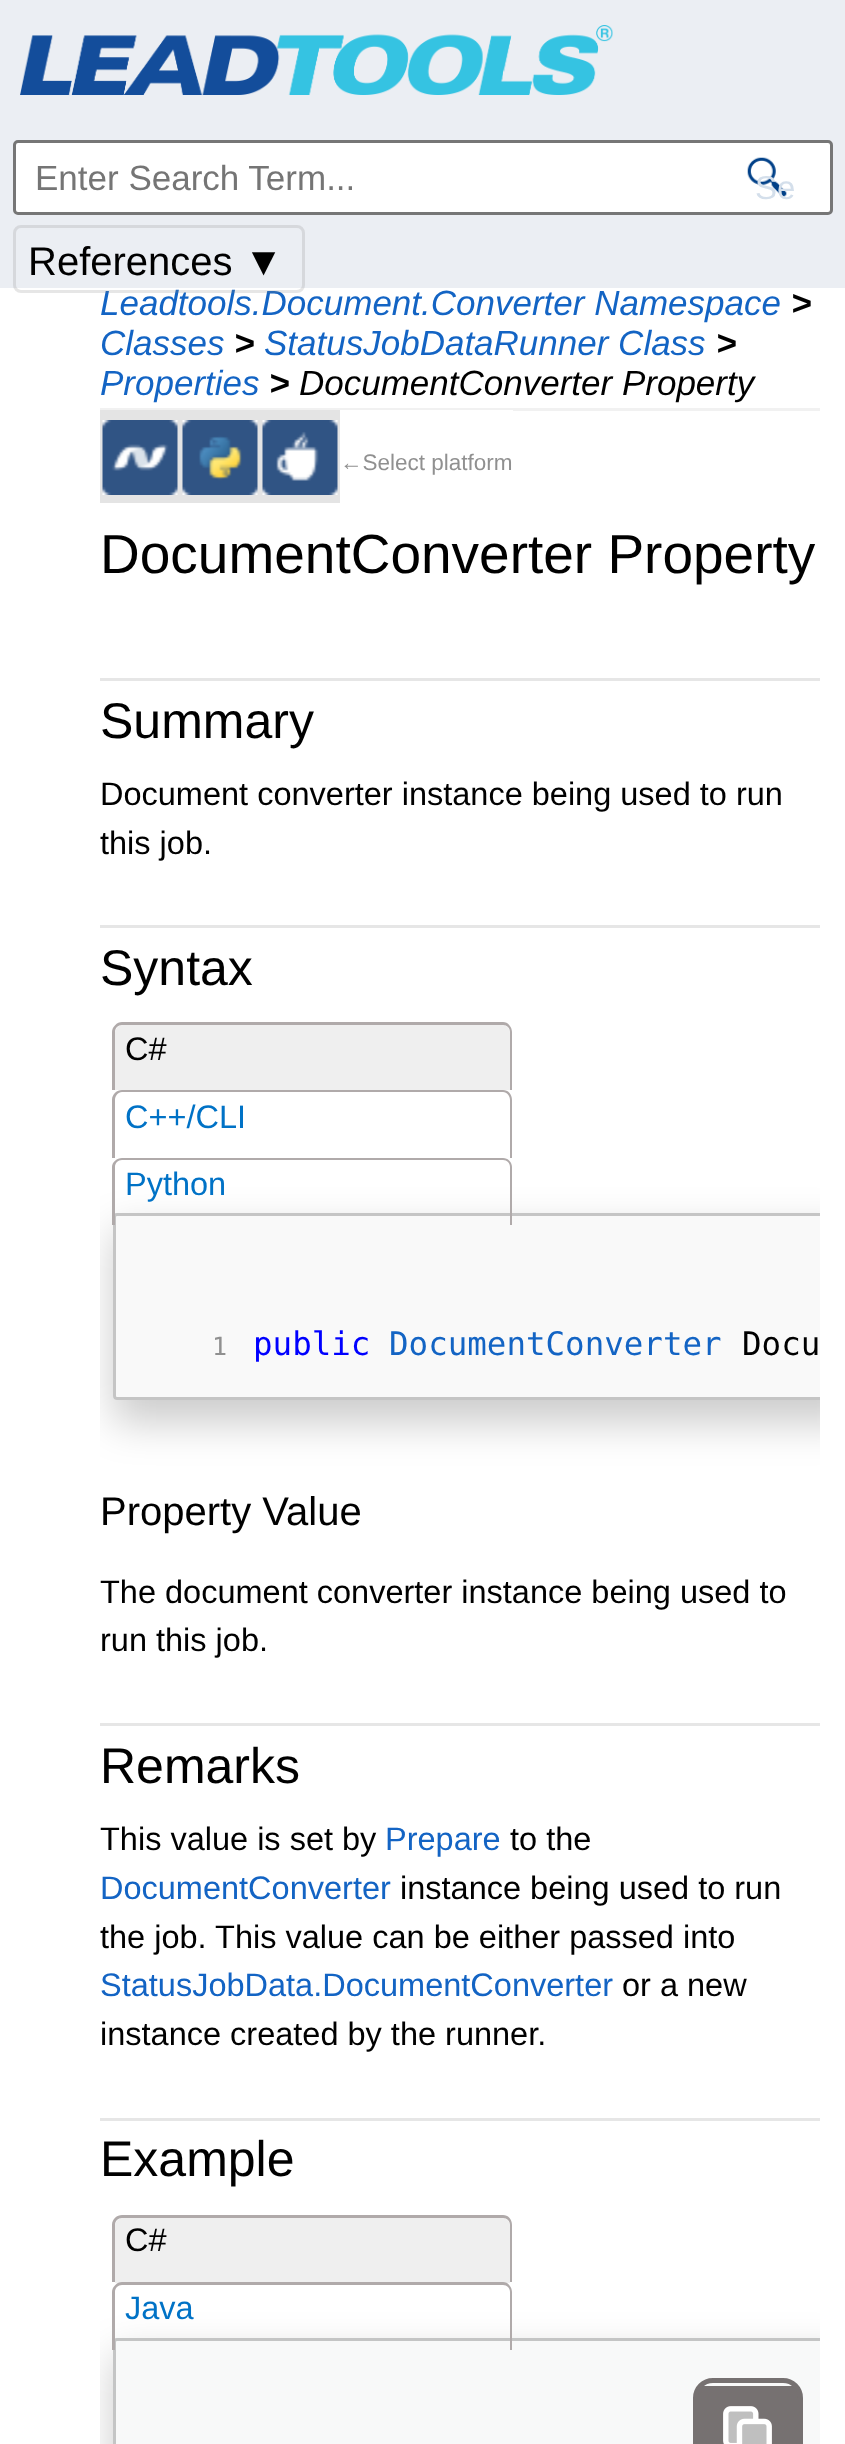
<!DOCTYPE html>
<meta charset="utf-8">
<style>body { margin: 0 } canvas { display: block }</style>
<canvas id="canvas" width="845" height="2444"></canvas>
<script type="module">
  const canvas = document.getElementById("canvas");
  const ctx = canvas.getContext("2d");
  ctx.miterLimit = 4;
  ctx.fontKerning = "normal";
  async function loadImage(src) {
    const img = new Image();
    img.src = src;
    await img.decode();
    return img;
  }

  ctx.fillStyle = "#ffffff";
  ctx.fillRect(0, 0, 845, 2444);
  ctx.fillStyle = "#ebeef3";
  ctx.fillRect(0, 0, 845, 288);
  ctx.drawImage(await loadImage("img1.png"), 20, 25, 593, 70);
  ctx.fillStyle = "#ffffff";
  ctx.beginPath();
  ctx.roundRect(14.5, 141.5, 817, 72, 3.5);
  ctx.fill();
  ctx.strokeStyle = "#767676";
  ctx.lineWidth = 3;
  ctx.stroke();
  ctx.font = "35px Liberation Sans";
  ctx.fillStyle = "#757575";
  ctx.fillText("Enter Search Term...", 35, 190);
  ctx.drawImage(await loadImage("img2.png"), 747, 157, 40, 40);
  ctx.font = "33px Liberation Sans";
  ctx.fillStyle = "#d4dfeb";
  ctx.fillText("Se", 755, 199);
  ctx.font = "italic 35px Liberation Sans";
  ctx.fillStyle = "#1364c4";
  ctx.fillText("Leadtools.Document.Converter Namespace", 100, 315);
  ctx.beginPath();
  ctx.roundRect(14.5, 226.5, 289, 65, 6.5);
  ctx.strokeStyle = "rgba(128, 128, 128, 0.2)";
  ctx.stroke();
  ctx.font = "40px Liberation Sans";
  ctx.fillStyle = "#000000";
  ctx.fillText("References ▼", 28, 275);
  ctx.fillStyle = "#f1f1f1";
  ctx.fillRect(100, 408, 720, 3);
  ctx.font = "italic bold 35px Liberation Sans";
  ctx.fillStyle = "#000000";
  ctx.fillText(">", 791, 315);
  ctx.font = "italic 35px Liberation Sans";
  ctx.fillStyle = "#1364c4";
  ctx.fillText("Classes", 100, 355);
  ctx.font = "italic bold 35px Liberation Sans";
  ctx.fillStyle = "#000000";
  ctx.fillText(">", 234, 355);
  ctx.font = "italic 35px Liberation Sans";
  ctx.fillStyle = "#1364c4";
  ctx.fillText("StatusJobDataRunner Class", 264, 355);
  ctx.font = "italic bold 35px Liberation Sans";
  ctx.fillStyle = "#000000";
  ctx.fillText(">", 716, 355);
  ctx.font = "italic 35px Liberation Sans";
  ctx.fillStyle = "#1364c4";
  ctx.fillText("Properties", 100, 395);
  ctx.font = "italic bold 35px Liberation Sans";
  ctx.fillStyle = "#000000";
  ctx.fillText(">", 269, 395);
  ctx.font = "italic 35px Liberation Sans";
  ctx.fillText("DocumentConverter Property", 299, 395);
  ctx.fillStyle = "#ffffff";
  ctx.fillRect(100, 410, 413, 1);
  ctx.fillStyle = "#e4e4e4";
  ctx.fillRect(100, 410, 240, 93);
  ctx.drawImage(await loadImage("img3.png"), 102, 420, 76, 75);
  ctx.drawImage(await loadImage("img4.png"), 182, 420, 76, 75);
  ctx.drawImage(await loadImage("img5.png"), 262, 420, 76, 75);
  ctx.font = "22.5px Liberation Sans";
  ctx.fillStyle = "#909090";
  ctx.fillText("←Select platform", 340, 470);
  ctx.font = "55px Liberation Sans";
  ctx.fillStyle = "#000000";
  ctx.fillText("DocumentConverter Property", 100, 573);
  ctx.fillStyle = "#e6e6e6";
  ctx.fillRect(100, 678, 720, 3);
  ctx.font = "50px Liberation Sans";
  ctx.fillStyle = "#000000";
  ctx.fillText("Summary", 100, 738);
  ctx.font = "32.5px Liberation Sans";
  ctx.fillText("Document converter instance being used to run", 100, 805);
  ctx.fillText("this job.", 100, 854);
  ctx.fillStyle = "#e6e6e6";
  ctx.fillRect(100, 925, 720, 3);
  ctx.font = "50px Liberation Sans";
  ctx.fillStyle = "#000000";
  ctx.fillText("Syntax", 100, 985);
  ctx.fillStyle = "#efefef";
  ctx.beginPath();
  ctx.roundRect(115, 1025, 395, 65, [8, 8, 0, 0]);
  ctx.fill();
  ctx.fillStyle = "#b0aaaa";
  ctx.beginPath();
  ctx.moveTo(122, 1022);
  ctx.lineTo(503, 1022);
  ctx.bezierCurveTo(508, 1022, 512, 1027, 512, 1032);
  ctx.lineTo(512, 1090);
  ctx.lineTo(112, 1090);
  ctx.lineTo(112, 1032);
  ctx.bezierCurveTo(112, 1027, 117, 1022, 122, 1022);
  ctx.closePath();
  ctx.moveTo(122, 1025);
  ctx.lineTo(503, 1025);
  ctx.bezierCurveTo(507, 1025, 510, 1028, 510, 1032);
  ctx.lineTo(510, 1090);
  ctx.lineTo(115, 1090);
  ctx.lineTo(115, 1032);
  ctx.bezierCurveTo(115, 1028, 118, 1025, 122, 1025);
  ctx.closePath();
  ctx.fill("evenodd");
  ctx.font = "32.5px Liberation Sans";
  ctx.fillStyle = "#000000";
  ctx.fillText("C#", 125, 1060);
  ctx.fillStyle = "#b0aaaa";
  ctx.beginPath();
  ctx.moveTo(122, 1090);
  ctx.lineTo(503, 1090);
  ctx.bezierCurveTo(508, 1090, 512, 1094, 512, 1100);
  ctx.lineTo(512, 1158);
  ctx.lineTo(112, 1158);
  ctx.lineTo(112, 1100);
  ctx.bezierCurveTo(112, 1094, 117, 1090, 122, 1090);
  ctx.closePath();
  ctx.moveTo(122, 1092);
  ctx.lineTo(503, 1092);
  ctx.bezierCurveTo(507, 1092, 510, 1096, 510, 1100);
  ctx.lineTo(510, 1158);
  ctx.lineTo(115, 1158);
  ctx.lineTo(115, 1100);
  ctx.bezierCurveTo(115, 1096, 118, 1092, 122, 1092);
  ctx.closePath();
  ctx.fill("evenodd");
  ctx.fillStyle = "#0072c6";
  ctx.fillText("C++/CLI", 125, 1128);
  ctx.save();
  ctx.beginPath();
  ctx.rect(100, 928, 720, 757);
  ctx.clip();
  ctx.fillStyle = "rgba(0, 0, 0, 0.2)";
  ctx.filter = "blur(20px)";
  ctx.beginPath();
  ctx.roundRect(113, 1230, 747, 193, 6);
  ctx.fill();
  ctx.filter = "none";
  ctx.restore();
  ctx.fillStyle = "#f9f9f9";
  ctx.beginPath();
  ctx.roundRect(113, 1213, 707, 187, [4, 0, 0, 4]);
  ctx.fill();
  ctx.save();
  ctx.beginPath();
  ctx.rect(100, 928, 720, 757);
  ctx.clip();
  ctx.beginPath();
  ctx.roundRect(114.5, 1214.5, 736, 184, 2.5);
  ctx.strokeStyle = "#c5c5c5";
  ctx.stroke();
  ctx.restore();
  ctx.fillStyle = "#b0aaaa";
  ctx.beginPath();
  ctx.moveTo(122, 1158);
  ctx.lineTo(503, 1158);
  ctx.bezierCurveTo(508, 1158, 512, 1162, 512, 1167);
  ctx.lineTo(512, 1225);
  ctx.lineTo(112, 1225);
  ctx.lineTo(112, 1167);
  ctx.bezierCurveTo(112, 1162, 117, 1158, 122, 1158);
  ctx.closePath();
  ctx.moveTo(122, 1160);
  ctx.lineTo(503, 1160);
  ctx.bezierCurveTo(507, 1160, 510, 1163, 510, 1167);
  ctx.lineTo(510, 1225);
  ctx.lineTo(115, 1225);
  ctx.lineTo(115, 1167);
  ctx.bezierCurveTo(115, 1163, 118, 1160, 122, 1160);
  ctx.closePath();
  ctx.fill("evenodd");
  ctx.fillStyle = "#0072c6";
  ctx.fillText("Python", 125, 1195);
  ctx.font = "25px DejaVu Sans Mono";
  ctx.fillStyle = "#909090";
  ctx.fillText("1", 212, 1355);
  ctx.font = "32.5px DejaVu Sans Mono";
  ctx.fillStyle = "#0000ff";
  ctx.fillText("public", 253, 1355);
  ctx.fillStyle = "#1364c4";
  ctx.fillText("DocumentConverter", 389, 1355);
  ctx.fillStyle = "#000000";
  ctx.fillText("Docu", 742, 1355);
  ctx.font = "40px Liberation Sans";
  ctx.fillText("Property Value", 100, 1525);
  ctx.font = "32.5px Liberation Sans";
  ctx.fillText("The document converter instance being used to", 100, 1603);
  ctx.fillText("run this job.", 100, 1651);
  ctx.fillStyle = "#e6e6e6";
  ctx.fillRect(100, 1723, 720, 3);
  ctx.font = "50px Liberation Sans";
  ctx.fillStyle = "#000000";
  ctx.fillText("Remarks", 100, 1783);
  ctx.font = "32.5px Liberation Sans";
  ctx.fillText("This value is set by", 100, 1850);
  ctx.fillStyle = "#1364c4";
  ctx.fillText("Prepare", 385, 1850);
  ctx.fillStyle = "#000000";
  ctx.fillText("to the", 510, 1850);
  ctx.fillStyle = "#1364c4";
  ctx.fillText("DocumentConverter", 100, 1899);
  ctx.fillStyle = "#000000";
  ctx.fillText("instance being used to run", 400, 1899);
  ctx.fillText("the job. This value can be either passed into", 100, 1948);
  ctx.fillStyle = "#1364c4";
  ctx.fillText("StatusJobData.DocumentConverter", 100, 1996);
  ctx.fillStyle = "#000000";
  ctx.fillText("or a new", 622, 1996);
  ctx.fillText("instance created by the runner.", 100, 2045);
  ctx.fillStyle = "#e6e6e6";
  ctx.fillRect(100, 2118, 720, 3);
  ctx.font = "50px Liberation Sans";
  ctx.fillStyle = "#000000";
  ctx.fillText("Example", 100, 2176);
  ctx.fillStyle = "#efefef";
  ctx.beginPath();
  ctx.roundRect(115, 2218, 395, 65, [8, 8, 0, 0]);
  ctx.fill();
  ctx.fillStyle = "#b0aaaa";
  ctx.beginPath();
  ctx.moveTo(122, 2215);
  ctx.lineTo(503, 2215);
  ctx.bezierCurveTo(508, 2215, 512, 2219, 512, 2225);
  ctx.lineTo(512, 2282);
  ctx.lineTo(112, 2282);
  ctx.lineTo(112, 2225);
  ctx.bezierCurveTo(112, 2219, 117, 2215, 122, 2215);
  ctx.closePath();
  ctx.moveTo(122, 2218);
  ctx.lineTo(503, 2218);
  ctx.bezierCurveTo(507, 2218, 510, 2221, 510, 2225);
  ctx.lineTo(510, 2282);
  ctx.lineTo(115, 2282);
  ctx.lineTo(115, 2225);
  ctx.bezierCurveTo(115, 2221, 118, 2218, 122, 2218);
  ctx.closePath();
  ctx.fill("evenodd");
  ctx.font = "32.5px Liberation Sans";
  ctx.fillStyle = "#000000";
  ctx.fillText("C#", 125, 2251);
  ctx.save();
  ctx.beginPath();
  ctx.rect(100, 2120, 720, 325);
  ctx.clip();
  ctx.fillStyle = "rgba(0, 0, 0, 0.2)";
  ctx.filter = "blur(20px)";
  ctx.beginPath();
  ctx.roundRect(113, 2355, 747, 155, 6);
  ctx.fill();
  ctx.filter = "none";
  ctx.restore();
  ctx.fillStyle = "#f8f9f9";
  ctx.beginPath();
  ctx.moveTo(117, 2338);
  ctx.lineTo(820, 2338);
  ctx.lineTo(820, 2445);
  ctx.lineTo(113, 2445);
  ctx.lineTo(113, 2342);
  ctx.bezierCurveTo(113, 2340, 115, 2338, 117, 2338);
  ctx.closePath();
  ctx.fill();
  ctx.save();
  ctx.beginPath();
  ctx.rect(100, 2120, 720, 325);
  ctx.clip();
  ctx.beginPath();
  ctx.roundRect(114.5, 2339.5, 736, 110, 2.5);
  ctx.strokeStyle = "#c4c5c5";
  ctx.stroke();
  ctx.restore();
  ctx.fillStyle = "#b0aaaa";
  ctx.beginPath();
  ctx.moveTo(122, 2282);
  ctx.lineTo(503, 2282);
  ctx.bezierCurveTo(508, 2282, 512, 2287, 512, 2292);
  ctx.lineTo(512, 2350);
  ctx.lineTo(112, 2350);
  ctx.lineTo(112, 2292);
  ctx.bezierCurveTo(112, 2287, 117, 2282, 122, 2282);
  ctx.closePath();
  ctx.moveTo(122, 2285);
  ctx.lineTo(503, 2285);
  ctx.bezierCurveTo(507, 2285, 510, 2288, 510, 2292);
  ctx.lineTo(510, 2350);
  ctx.lineTo(115, 2350);
  ctx.lineTo(115, 2292);
  ctx.bezierCurveTo(115, 2288, 118, 2285, 122, 2285);
  ctx.closePath();
  ctx.fill("evenodd");
  ctx.fillStyle = "#0072c6";
  ctx.fillText("Java", 125, 2319);
  ctx.drawImage(await loadImage("img6.png"), 698, 2386, 100, 58);
  ctx.beginPath();
  ctx.roundRect(695.5, 2380.5, 105, 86, 17.5);
  ctx.strokeStyle = "#767171";
  ctx.lineWidth = 5;
  ctx.stroke();
</script>
